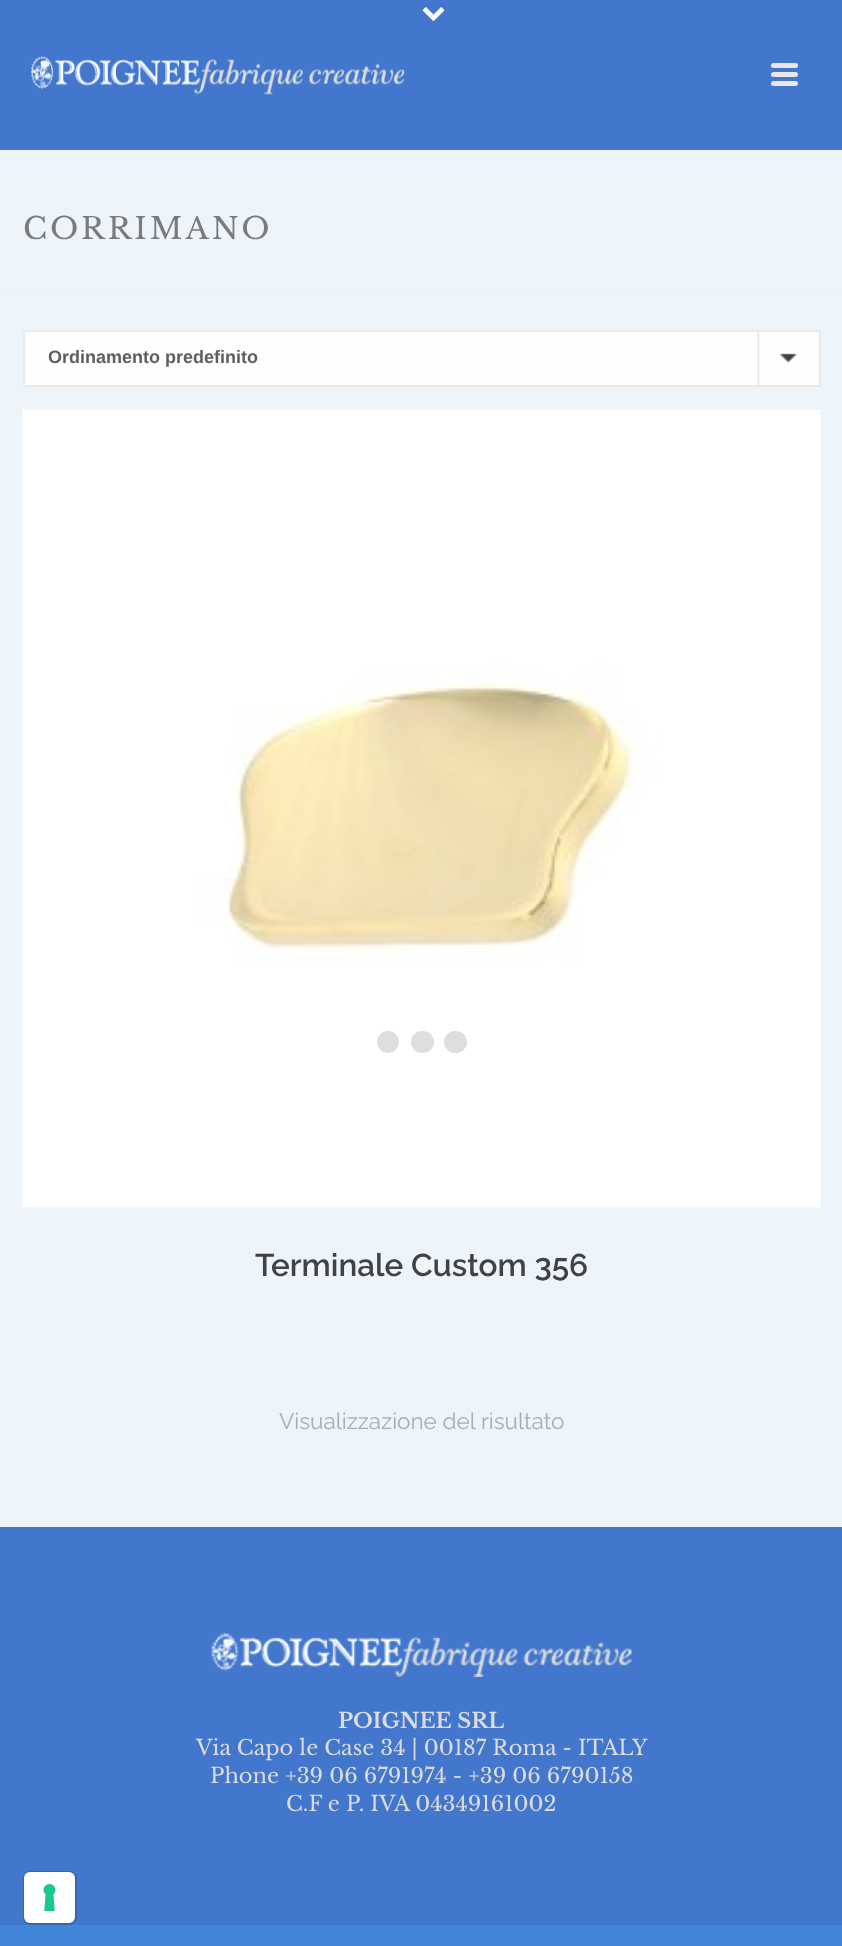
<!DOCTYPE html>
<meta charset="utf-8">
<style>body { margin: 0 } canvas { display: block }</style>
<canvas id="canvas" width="842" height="1946"></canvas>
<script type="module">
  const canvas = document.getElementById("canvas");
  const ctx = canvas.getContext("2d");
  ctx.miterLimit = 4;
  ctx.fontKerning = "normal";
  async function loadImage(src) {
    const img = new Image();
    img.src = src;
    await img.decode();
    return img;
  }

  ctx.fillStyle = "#4277cd";
  ctx.fillRect(0, 0, 842, 1946);
  ctx.fillStyle = "#f2f2f2";
  ctx.fillRect(0, 291, 842, 2);
  ctx.drawImage(await loadImage("img1.png"), 422, 7, 23, 14);
  ctx.drawImage(await loadImage("img2.png"), 31, 56, 374, 39);
  ctx.fillStyle = "#e8e8e8";
  ctx.beginPath();
  ctx.roundRect(771, 63, 27, 5, 2.5);
  ctx.fill();
  ctx.beginPath();
  ctx.roundRect(771, 72, 27, 5, 2.5);
  ctx.fill();
  ctx.beginPath();
  ctx.roundRect(771, 81, 27, 5, 2.5);
  ctx.fill();
  ctx.fillStyle = "#edf4fa";
  ctx.fillRect(0, 150, 842, 141);
  ctx.letterSpacing = "3px";
  ctx.font = "30px Libre Baskerville";
  ctx.fillStyle = "#7b7b7b";
  ctx.fillText("CORRIMANO", 23, 239);
  ctx.fillStyle = "#edf4fa";
  ctx.fillRect(0, 293, 842, 1234);
  ctx.fillStyle = "#fefefe";
  ctx.fillRect(25, 332, 794, 53);
  ctx.drawImage(await loadImage("img3.png"), 757, 332, 40, 53);
  ctx.strokeStyle = "#eaeaea";
  ctx.lineWidth = 2;
  ctx.strokeRect(24, 331, 796, 55);
  ctx.letterSpacing = "0px";
  ctx.font = "bold 18px Liberation Sans";
  ctx.fillStyle = "#5e5e5e";
  ctx.fillText("Ordinamento predefinito", 48, 363);
  ctx.drawImage(await loadImage("img4.png"), 22, 409, 799, 799);
  ctx.font = "600 31.5px Raleway";
  ctx.fillStyle = "#424242";
  ctx.fillText("Terminale Custom 356", 255, 1276);
  ctx.font = "22.5px Raleway";
  ctx.fillStyle = "#a9adb1";
  ctx.fillText("Visualizzazione del risultato", 279, 1429);
  ctx.drawImage(await loadImage("img5.png"), 211, 1633, 421, 44);
  ctx.font = "bold 21px Libre Baskerville";
  ctx.fillStyle = "#dbdbdb";
  ctx.fillText("POIGNEE SRL", 338, 1728);
  ctx.font = "21px Libre Baskerville";
  ctx.fillText("Via Capo le Case 34 | 00187 Roma - ITALY", 196, 1755);
  ctx.fillText("Phone +39 06 6791974 - +39 06 6790158", 210, 1783);
  ctx.fillText("C.F e P. IVA 04349161002", 286, 1811);
  ctx.fillStyle = "#4286db";
  ctx.fillRect(0, 1925, 842, 21);
  ctx.fillStyle = "#dedede";
  ctx.beginPath();
  ctx.arc(388, 1042, 11, 0, Math.PI * 2);
  ctx.fill();
  ctx.beginPath();
  ctx.roundRect(411, 1031, 23, 22, 11);
  ctx.fill();
  ctx.beginPath();
  ctx.roundRect(444, 1031, 23, 22, 11);
  ctx.fill();
  ctx.beginPath();
  ctx.roundRect(24, 1872, 52, 52, 7);
  ctx.strokeStyle = "#3865ae";
  ctx.stroke();
  ctx.fillStyle = "#ffffff";
  ctx.beginPath();
  ctx.roundRect(24, 1872, 51, 51, 6);
  ctx.fill();
  ctx.drawImage(await loadImage("img6.png"), 43, 1884, 13, 27);
</script>
